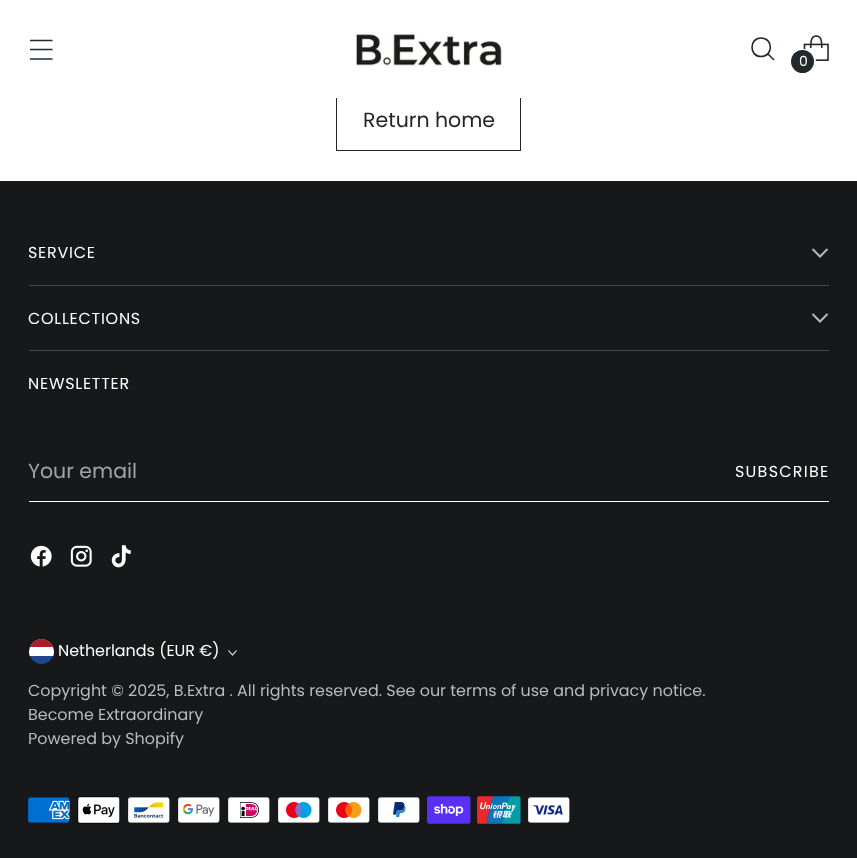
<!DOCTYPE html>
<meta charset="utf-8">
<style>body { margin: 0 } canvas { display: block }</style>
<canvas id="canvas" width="857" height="858"></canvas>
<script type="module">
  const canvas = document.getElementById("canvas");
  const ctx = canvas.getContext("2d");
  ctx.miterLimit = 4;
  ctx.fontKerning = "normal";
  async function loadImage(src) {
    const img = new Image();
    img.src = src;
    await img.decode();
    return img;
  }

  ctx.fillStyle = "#ffffff";
  ctx.fillRect(0, 0, 857, 858);
  ctx.strokeStyle = "#242526";
  ctx.strokeRect(336.5, 91.5, 184, 59);
  ctx.fillRect(336, 91, 185, 7);
  ctx.beginPath();
  ctx.moveTo(30, 49.5);
  ctx.lineTo(52.5, 49.5);
  ctx.moveTo(30, 40.5);
  ctx.lineTo(52.5, 40.5);
  ctx.moveTo(30, 59);
  ctx.lineTo(52.5, 59);
  ctx.strokeStyle = "#22292d";
  ctx.lineWidth = 1.6;
  ctx.stroke();
  ctx.drawImage(await loadImage("img1.png"), 356, 34, 147, 33);
  ctx.beginPath();
  ctx.moveTo(761, 56.5);
  ctx.bezierCurveTo(773.5, 56.5, 773.5, 38, 761, 38);
  ctx.bezierCurveTo(749, 38, 749, 56.5, 761, 56.5);
  ctx.closePath();
  ctx.lineCap = "round";
  ctx.stroke();
  ctx.beginPath();
  ctx.moveTo(768, 54);
  ctx.lineTo(774, 60);
  ctx.lineCap = "butt";
  ctx.stroke();
  ctx.drawImage(await loadImage("img2.png"), 803, 35, 26, 26);
  ctx.beginPath();
  ctx.arc(803, 62, 12, 0, Math.PI * 2);
  ctx.strokeStyle = "#ffffff";
  ctx.lineWidth = 2;
  ctx.stroke();
  ctx.fillStyle = "#22292d";
  ctx.beginPath();
  ctx.arc(802.5, 61.5, 11.5, 0, Math.PI * 2);
  ctx.fill();
  ctx.font = "14px Poppins";
  ctx.fillStyle = "#ffffff";
  ctx.fillText("0", 799, 66);
  ctx.font = "20.5px Poppins";
  ctx.fillStyle = "#242526";
  ctx.fillText("Return home", 363, 127);
  ctx.fillStyle = "#171819";
  ctx.fillRect(0, 181, 857, 677);
  ctx.fillStyle = "#454647";
  ctx.fillRect(29, 285, 800, 1);
  ctx.letterSpacing = "0.75px";
  ctx.font = "15.95px Poppins";
  ctx.fillStyle = "#ffffff";
  ctx.fillText("SERVICE", 28, 258);
  ctx.beginPath();
  ctx.moveTo(812.5, 249);
  ctx.lineTo(820, 256.5);
  ctx.lineTo(827.5, 249);
  ctx.strokeStyle = "#b9baba";
  ctx.stroke();
  ctx.fillStyle = "#454647";
  ctx.fillRect(29, 350, 800, 1);
  ctx.fillStyle = "#ffffff";
  ctx.fillText("COLLECTIONS", 28, 324);
  ctx.beginPath();
  ctx.moveTo(812.5, 314);
  ctx.lineTo(820, 321.5);
  ctx.lineTo(827.5, 314);
  ctx.stroke();
  ctx.fillText("NEWSLETTER", 28, 389);
  ctx.fillRect(29, 501, 800, 1);
  ctx.letterSpacing = "0px";
  ctx.font = "20.5px Poppins";
  ctx.fillStyle = "#a2a3a3";
  ctx.fillText("Your email", 28, 478);
  ctx.letterSpacing = "1.25px";
  ctx.font = "15.95px Poppins";
  ctx.fillStyle = "#ffffff";
  ctx.fillText("SUBSCRIBE", 735, 477);
  ctx.drawImage(await loadImage("img3.png"), 30, 545, 22, 22);
  ctx.drawImage(await loadImage("img4.png"), 70, 545, 22, 22);
  ctx.drawImage(await loadImage("img5.png"), 111, 545, 20, 23);
  ctx.fillStyle = "#21468b";
  ctx.beginPath();
  ctx.arc(41.5, 651.5, 12.5, 0, Math.PI * 2);
  ctx.fill();
  ctx.save();
  ctx.beginPath();
  ctx.roundRect(29, 639, 25, 25, 12.5);
  ctx.clip();
  ctx.fillStyle = "#ffffff";
  ctx.beginPath();
  ctx.roundRect(29, 639, 25, 17, [12.5, 12.5, 0, 0]);
  ctx.fill();
  ctx.fillStyle = "#ae1c28";
  ctx.fillRect(29, 639, 25, 8);
  ctx.restore();
  ctx.letterSpacing = "0px";
  ctx.fillStyle = "#ffffff";
  ctx.fillText("Netherlands (EUR €)", 58, 656);
  ctx.beginPath();
  ctx.moveTo(228.5, 650.5);
  ctx.lineTo(232.5, 655);
  ctx.lineTo(236.5, 650.5);
  ctx.strokeStyle = "#ffffff";
  ctx.lineWidth = 1.1;
  ctx.stroke();
  ctx.fillStyle = "#b9baba";
  ctx.fillText("Copyright © 2025, B.Extra . All rights reserved. See our terms of use and privacy notice.", 28, 696);
  ctx.fillText("Become Extraordinary", 28, 720);
  ctx.fillText("Powered by Shopify", 28, 744);
  ctx.drawImage(await loadImage("img6.png"), 28, 797, 42, 26);
  ctx.drawImage(await loadImage("img7.png"), 77, 796, 44, 28);
  ctx.drawImage(await loadImage("img8.png"), 128, 797, 42, 26);
  ctx.drawImage(await loadImage("img9.png"), 178, 797, 42, 26);
  ctx.drawImage(await loadImage("img10.png"), 228, 797, 42, 26);
  ctx.drawImage(await loadImage("img11.png"), 278, 797, 42, 26);
  ctx.drawImage(await loadImage("img12.png"), 328, 797, 42, 26);
  ctx.drawImage(await loadImage("img13.png"), 378, 797, 42, 26);
  ctx.drawImage(await loadImage("img14.png"), 427, 796, 44, 28);
  ctx.drawImage(await loadImage("img15.png"), 477, 796, 44, 28);
  ctx.drawImage(await loadImage("img16.png"), 528, 797, 42, 26);
</script>
